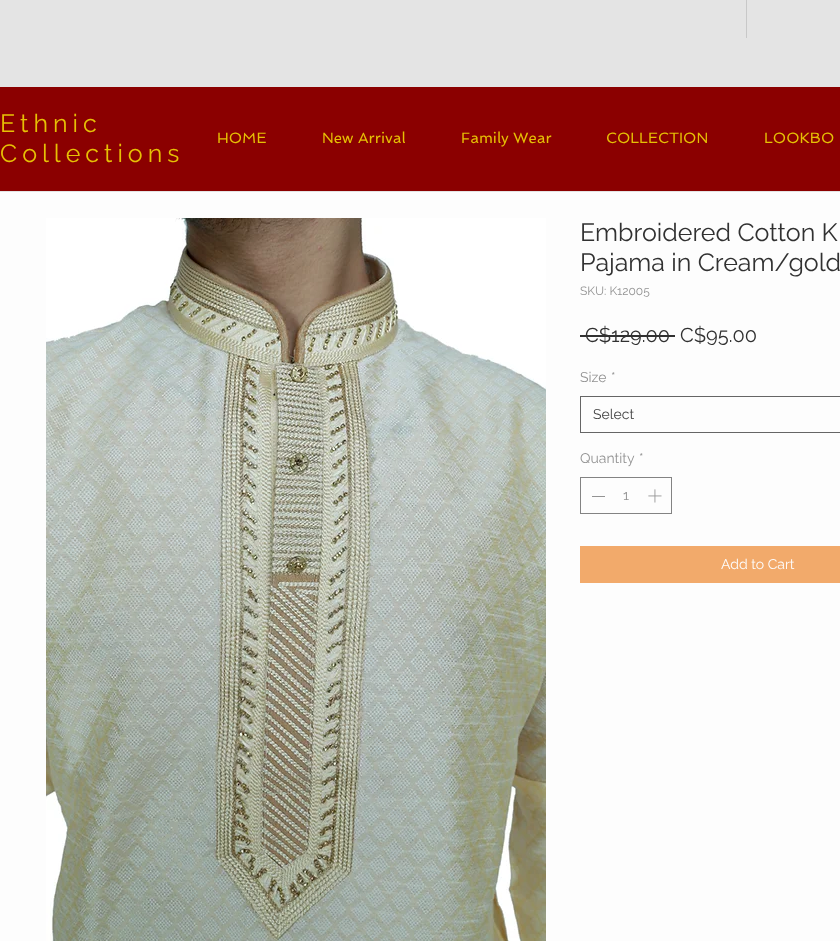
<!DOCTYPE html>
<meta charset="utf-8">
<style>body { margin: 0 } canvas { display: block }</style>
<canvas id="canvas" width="840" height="941"></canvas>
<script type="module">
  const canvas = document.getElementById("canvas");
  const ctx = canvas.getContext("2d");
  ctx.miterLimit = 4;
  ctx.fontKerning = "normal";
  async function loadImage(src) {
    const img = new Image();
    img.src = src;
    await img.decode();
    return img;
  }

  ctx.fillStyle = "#fdfdfd";
  ctx.fillRect(0, 0, 840, 941);
  ctx.fillStyle = "#e4e4e4";
  ctx.fillRect(0, 0, 840, 192);
  ctx.fillStyle = "#c8c8c8";
  ctx.fillRect(746, 0, 1, 38);
  ctx.fillStyle = "#8b0000";
  ctx.fillRect(0, 87, 840, 104);
  ctx.letterSpacing = "5px";
  ctx.font = "25px Raleway";
  ctx.fillStyle = "#e6c005";
  ctx.fillText("Ethnic", 0, 132);
  ctx.fillText("Collections", 0, 162);
  ctx.letterSpacing = "0px";
  ctx.font = "15px Spinnaker";
  ctx.fillText("HOME", 217, 143);
  ctx.fillText("New Arrival", 322, 143);
  ctx.fillText("Family Wear", 461, 143);
  ctx.fillText("COLLECTION", 606, 143);
  ctx.fillText("LOOKBO", 764, 143);
  ctx.drawImage(await loadImage("img1.png"), 46, 218, 500, 723);
  ctx.font = "25px Raleway";
  ctx.fillStyle = "#313131";
  ctx.fillText("Embroidered Cotton K", 580, 241);
  ctx.fillText("Pajama in Cream/gold", 580, 271);
  ctx.font = "12px Raleway";
  ctx.fillStyle = "#939393";
  ctx.fillText("SKU: K12005", 580, 295);
  ctx.font = "20px Raleway";
  ctx.fillStyle = "#313131";
  ctx.fillText("C$129.00", 585, 342);
  ctx.fillRect(580, 335, 95, 2);
  ctx.fillText("C$95.00", 680, 342);
  ctx.font = "14px Raleway";
  ctx.fillStyle = "#939393";
  ctx.fillText("Size", 580, 382);
  ctx.fillText("*", 611, 382);
  ctx.strokeStyle = "#666666";
  ctx.strokeRect(580.5, 396.5, 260, 36);
  ctx.fillStyle = "#444444";
  ctx.fillText("Select", 593, 419);
  ctx.fillStyle = "#939393";
  ctx.fillText("Quantity", 580, 463);
  ctx.fillText("*", 639, 463);
  ctx.strokeStyle = "#838383";
  ctx.strokeRect(580.5, 477.5, 91, 36);
  ctx.fillRect(592, 496, 13, 1);
  ctx.fillText("1", 623, 500);
  ctx.drawImage(await loadImage("img2.png"), 648, 489, 14, 14);
  ctx.fillStyle = "#f2aa6b";
  ctx.fillRect(580, 546, 260, 37);
  ctx.fillStyle = "#fdfdfd";
  ctx.fillText("Add to Cart", 721, 569);
</script>
